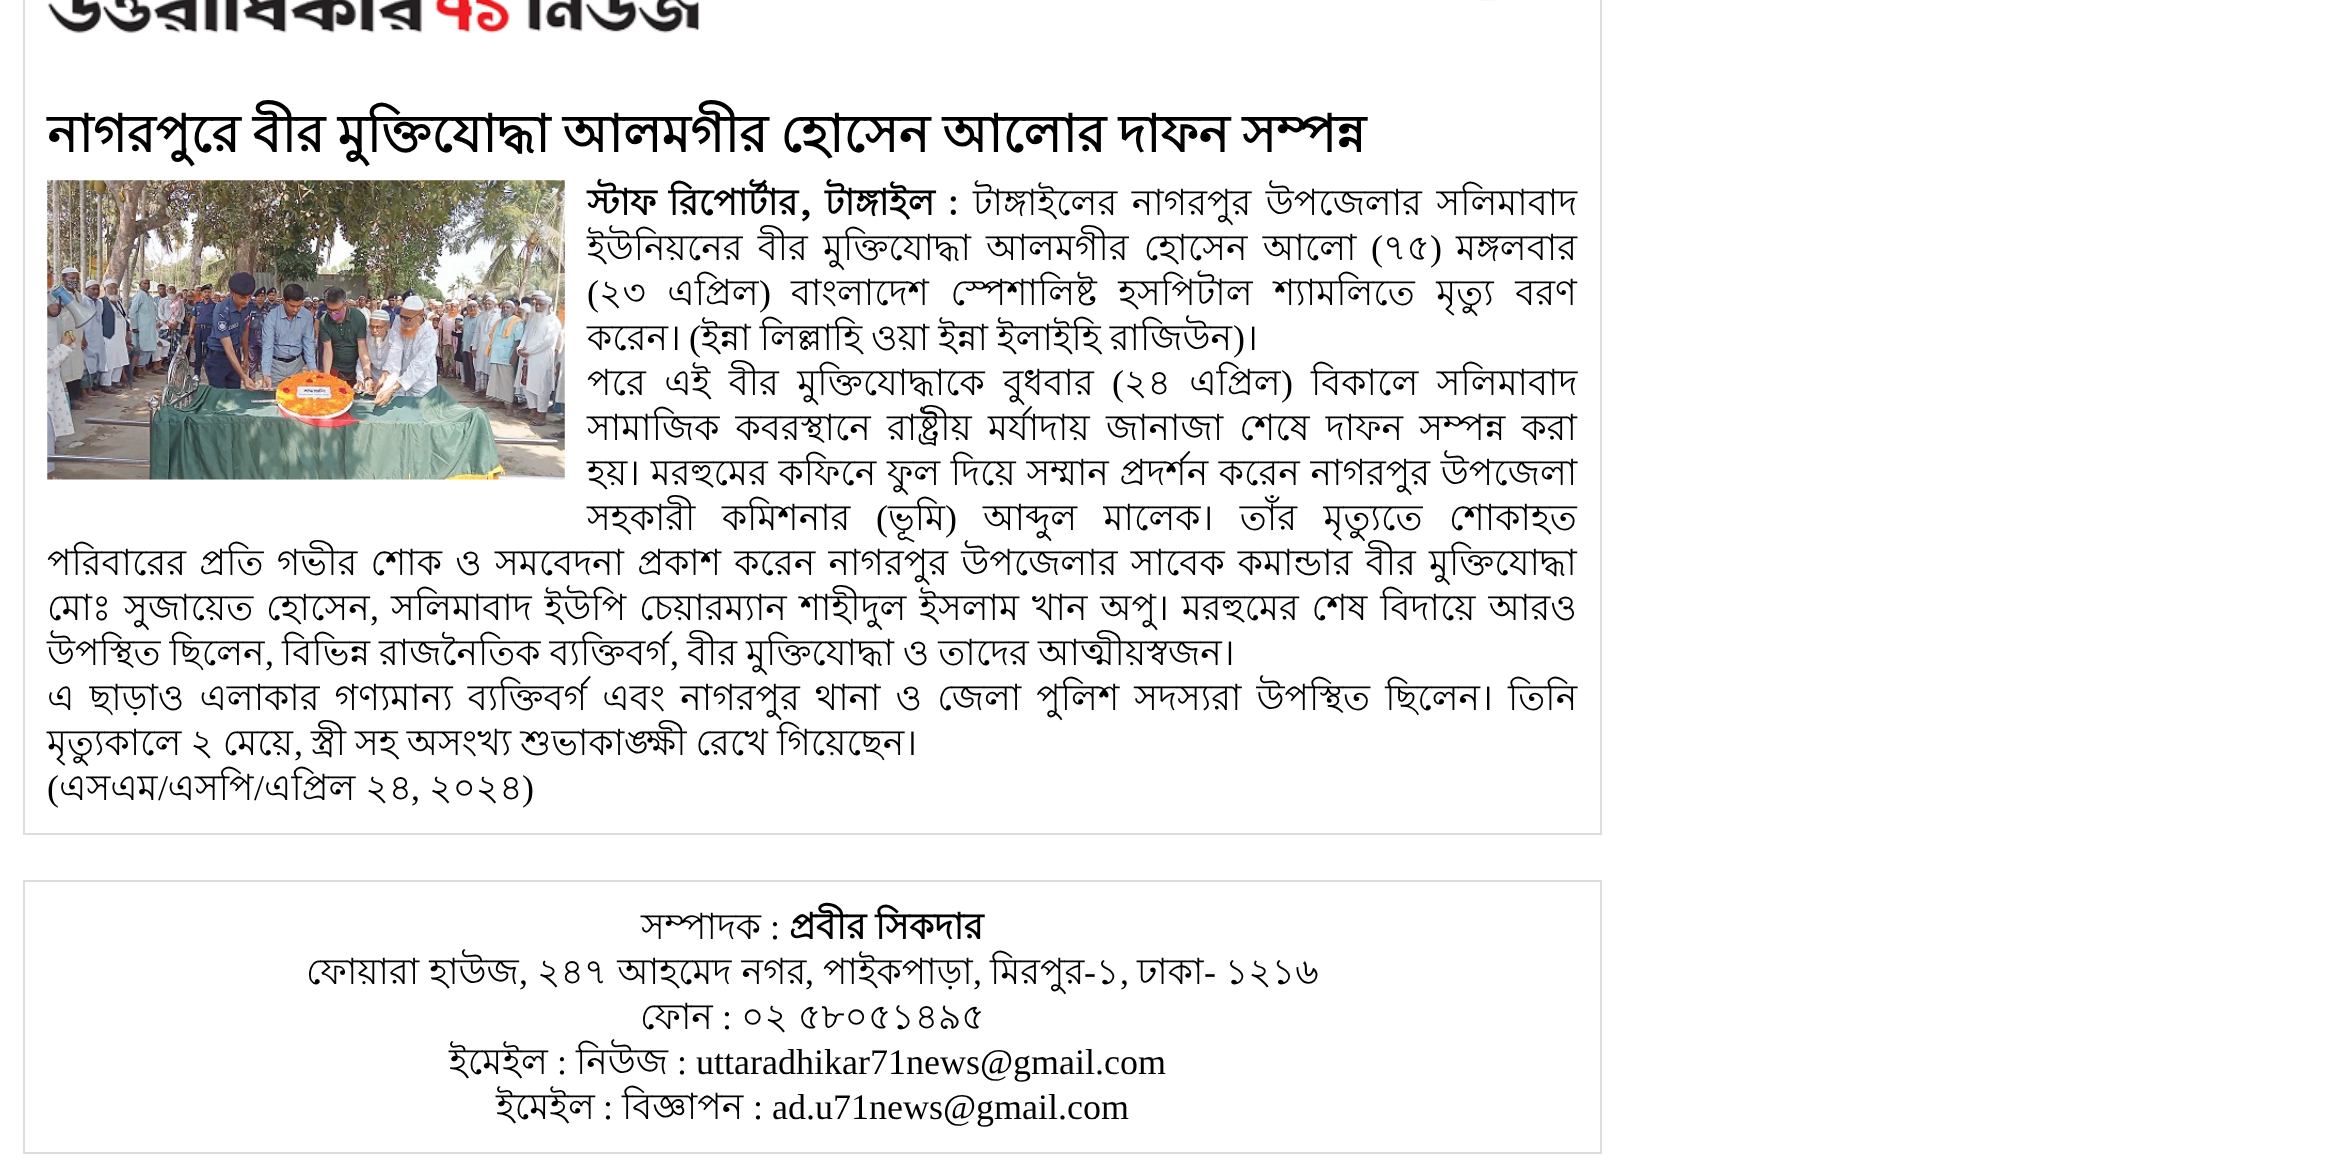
<!DOCTYPE html>
<meta charset="utf-8">
<style>body { margin: 0 } canvas { display: block }</style>
<canvas id="canvas" width="2333" height="1175"></canvas>
<script type="module">
  const canvas = document.getElementById("canvas");
  const ctx = canvas.getContext("2d");
  ctx.miterLimit = 4;
  ctx.fontKerning = "normal";
  async function loadImage(src) {
    const img = new Image();
    img.src = src;
    await img.decode();
    return img;
  }

  ctx.fillStyle = "#ffffff";
  ctx.fillRect(0, 0, 2333, 1175);
  ctx.strokeStyle = "#dddddd";
  ctx.lineWidth = 2;
  ctx.strokeRect(24, -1, 1577, 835);
  ctx.drawImage(await loadImage("img1.png"), 47, 0, 653, 34);
  ctx.drawImage(await loadImage("img2.png"), 1481, 0, 14, 1);
  ctx.wordSpacing = "-1.5px";
  ctx.font = "bold 51.75px Lohit Bengali";
  ctx.fillStyle = "#000000";
  ctx.fillText("নাগরপুরে বীর মুক্তিযোদ্ধা আলমগীর হোসেন আলোর দাফন সম্পন্ন", 47, 152);
  ctx.drawImage(await loadImage("img3.png"), 47, 180, 518, 300);
  ctx.wordSpacing = "2px";
  ctx.font = "bold 36px Lohit Bengali";
  ctx.fillText("স্টাফ রিপোর্টার, টাঙ্গাইল :", 587, 215);
  ctx.wordSpacing = "4.5px";
  ctx.font = "36px Lohit Bengali";
  ctx.fillText("টাঙ্গাইলের নাগরপুর উপজেলার সলিমাবাদ", 973, 215);
  ctx.wordSpacing = "5.25px";
  ctx.fillText("ইউনিয়নের বীর মুক্তিযোদ্ধা আলমগীর হোসেন আলো", 587, 260);
  ctx.wordSpacing = "0px";
  ctx.font = "36px Liberation Serif";
  ctx.fillText("(", 1371, 260);
  ctx.font = "36px Lohit Bengali";
  ctx.fillText("৭৫", 1383, 260);
  ctx.font = "36px Liberation Serif";
  ctx.fillText(")", 1430, 260);
  ctx.font = "36px Lohit Bengali";
  ctx.fillText("মঙ্গলবার", 1456, 260);
  ctx.font = "36px Liberation Serif";
  ctx.fillText("(", 587, 305);
  ctx.wordSpacing = "11.5px";
  ctx.font = "36px Lohit Bengali";
  ctx.fillText("২৩ এপ্রিল", 599, 305);
  ctx.wordSpacing = "0px";
  ctx.font = "36px Liberation Serif";
  ctx.fillText(")", 759, 305);
  ctx.wordSpacing = "11.5px";
  ctx.font = "36px Lohit Bengali";
  ctx.fillText("বাংলাদেশ স্পেশালিষ্ট হসপিটাল শ্যামলিতে মৃত্যু বরণ", 791, 305);
  ctx.wordSpacing = "0px";
  ctx.fillText("করেন।", 587, 350);
  ctx.font = "36px Liberation Serif";
  ctx.fillText("(", 689, 350);
  ctx.wordSpacing = "-1px";
  ctx.font = "36px Lohit Bengali";
  ctx.fillText("ইন্না লিল্লাহি ওয়া ইন্না ইলাইহি রাজিউন", 701, 350);
  ctx.wordSpacing = "0px";
  ctx.font = "36px Liberation Serif";
  ctx.fillText(")", 1233, 350);
  ctx.font = "36px Lohit Bengali";
  ctx.fillText("।", 1245, 350);
  ctx.wordSpacing = "8.5px";
  ctx.fillText("পরে এই বীর মুক্তিযোদ্ধাকে বুধবার", 587, 395);
  ctx.wordSpacing = "0px";
  ctx.font = "36px Liberation Serif";
  ctx.fillText("(", 1112, 395);
  ctx.wordSpacing = "8.5px";
  ctx.font = "36px Lohit Bengali";
  ctx.fillText("২৪ এপ্রিল", 1124, 395);
  ctx.wordSpacing = "0px";
  ctx.font = "36px Liberation Serif";
  ctx.fillText(")", 1281, 395);
  ctx.wordSpacing = "8.5px";
  ctx.font = "36px Lohit Bengali";
  ctx.fillText("বিকালে সলিমাবাদ", 1311, 395);
  ctx.wordSpacing = "6.25px";
  ctx.fillText("সামাজিক কবরস্থানে রাষ্ট্রীয় মর্যাদায় জানাজা শেষে দাফন সম্পন্ন করা", 587, 440);
  ctx.wordSpacing = "0.75px";
  ctx.fillText("হয়। মরহুমের কফিনে ফুল দিয়ে সম্মান প্রদর্শন করেন নাগরপুর উপজেলা", 587, 485);
  ctx.wordSpacing = "16.5px";
  ctx.fillText("সহকারী কমিশনার", 587, 530);
  ctx.wordSpacing = "0px";
  ctx.font = "36px Liberation Serif";
  ctx.fillText("(", 876, 530);
  ctx.font = "36px Lohit Bengali";
  ctx.fillText("ভূমি", 888, 530);
  ctx.wordSpacing = "16.5px";
  ctx.fillText("আব্দুল মালেক। তাঁর মৃত্যুতে শোকাহত", 983, 530);
  ctx.wordSpacing = "0px";
  ctx.font = "36px Liberation Serif";
  ctx.fillText(")", 945, 530);
  ctx.wordSpacing = "3.25px";
  ctx.font = "36px Lohit Bengali";
  ctx.fillText("পরিবারের প্রতি গভীর শোক ও সমবেদনা প্রকাশ করেন নাগরপুর উপজেলার সাবেক কমান্ডার বীর মুক্তিযোদ্ধা", 47, 575);
  ctx.wordSpacing = "2.9px";
  ctx.fillText("মোঃ সুজায়েত হোসেন", 47, 620);
  ctx.wordSpacing = "0px";
  ctx.font = "36px Liberation Serif";
  ctx.fillText(",", 370, 620);
  ctx.wordSpacing = "2.9px";
  ctx.font = "36px Lohit Bengali";
  ctx.fillText("সলিমাবাদ ইউপি চেয়ারম্যান শাহীদুল ইসলাম খান অপু। মরহুমের শেষ বিদায়ে আরও", 391, 620);
  ctx.wordSpacing = "-1px";
  ctx.fillText("উপস্থিত ছিলেন", 47, 665);
  ctx.wordSpacing = "0px";
  ctx.font = "36px Liberation Serif";
  ctx.fillText(",", 265, 665);
  ctx.wordSpacing = "-1px";
  ctx.font = "36px Lohit Bengali";
  ctx.fillText("বিভিন্ন রাজনৈতিক ব্যক্তিবর্গ", 282, 665);
  ctx.wordSpacing = "0px";
  ctx.font = "36px Liberation Serif";
  ctx.fillText(",", 670, 665);
  ctx.wordSpacing = "-1px";
  ctx.font = "36px Lohit Bengali";
  ctx.fillText("বীর মুক্তিযোদ্ধা ও তাদের আত্মীয়স্বজন।", 687, 665);
  ctx.wordSpacing = "5.1px";
  ctx.fillText("এ ছাড়াও এলাকার গণ্যমান্য ব্যক্তিবর্গ এবং নাগরপুর থানা ও জেলা পুলিশ সদস্যরা উপস্থিত ছিলেন। তিনি", 47, 710);
  ctx.wordSpacing = "-1px";
  ctx.fillText("মৃত্যুকালে ২ মেয়ে", 47, 755);
  ctx.wordSpacing = "0px";
  ctx.font = "36px Liberation Serif";
  ctx.fillText(",", 294, 755);
  ctx.wordSpacing = "-1px";
  ctx.font = "36px Lohit Bengali";
  ctx.fillText("স্ত্রী সহ অসংখ্য শুভাকাঙ্ক্ষী রেখে গিয়েছেন।", 311, 755);
  ctx.wordSpacing = "0px";
  ctx.font = "36px Liberation Serif";
  ctx.fillText("(", 47, 800);
  ctx.font = "36px Lohit Bengali";
  ctx.fillText("এসএম এসপি", 59, 800);
  ctx.fillText("এপ্রিল ২৪", 264, 800);
  ctx.font = "36px Liberation Serif";
  ctx.fillText(")", 522, 800);
  ctx.fillText("/", 158, 800);
  ctx.fillText("/", 254, 800);
  ctx.fillText(",", 411, 800);
  ctx.font = "36px Lohit Bengali";
  ctx.fillText("২০২৪", 429, 800);
  ctx.strokeRect(24, 881, 1577, 272);
  ctx.fillText("সম্পাদক", 641, 939);
  ctx.font = "36px Liberation Serif";
  ctx.fillText(":", 770, 939);
  ctx.wordSpacing = "-1px";
  ctx.font = "bold 36px Lohit Bengali";
  ctx.fillText("প্রবীর সিকদার", 789, 939);
  ctx.wordSpacing = "0px";
  ctx.font = "36px Lohit Bengali";
  ctx.fillText("ফোয়ারা হাউজ", 306, 984);
  ctx.fillText("২৪৭ আহমেদ নগর", 537, 984);
  ctx.fillText("পাইকপাড়া", 823, 984);
  ctx.fillText("মিরপুর", 990, 984);
  ctx.font = "36px Liberation Serif";
  ctx.fillText("-", 1084, 984);
  ctx.font = "36px Lohit Bengali";
  ctx.fillText("১", 1096, 984);
  ctx.fillText("ঢাকা", 1137, 984);
  ctx.font = "36px Liberation Serif";
  ctx.fillText("-", 1204, 984);
  ctx.font = "36px Lohit Bengali";
  ctx.fillText("১২১৬", 1225, 984);
  ctx.font = "36px Liberation Serif";
  ctx.fillText(",", 519, 984);
  ctx.fillText(",", 805, 984);
  ctx.fillText(",", 973, 984);
  ctx.fillText(",", 1120, 984);
  ctx.font = "36px Lohit Bengali";
  ctx.fillText("ফোন", 640, 1029);
  ctx.font = "36px Liberation Serif";
  ctx.fillText(":", 722, 1029);
  ctx.font = "36px Lohit Bengali";
  ctx.fillText("০২ ৫৮০৫১৪৯৫", 741, 1029);
  ctx.fillText("ইমেইল", 449, 1074);
  ctx.font = "36px Liberation Serif";
  ctx.fillText(":", 557, 1074);
  ctx.font = "36px Lohit Bengali";
  ctx.fillText("নিউজ", 576, 1074);
  ctx.font = "36px Liberation Serif";
  ctx.fillText(": uttaradhikar71news@gmail.com", 677, 1074);
  ctx.font = "36px Lohit Bengali";
  ctx.fillText("ইমেইল", 496, 1119);
  ctx.font = "36px Liberation Serif";
  ctx.fillText(":", 603, 1119);
  ctx.font = "36px Lohit Bengali";
  ctx.fillText("বিজ্ঞাপন", 622, 1119);
  ctx.font = "36px Liberation Serif";
  ctx.fillText(": ad.u71news@gmail.com", 753, 1119);
</script>
